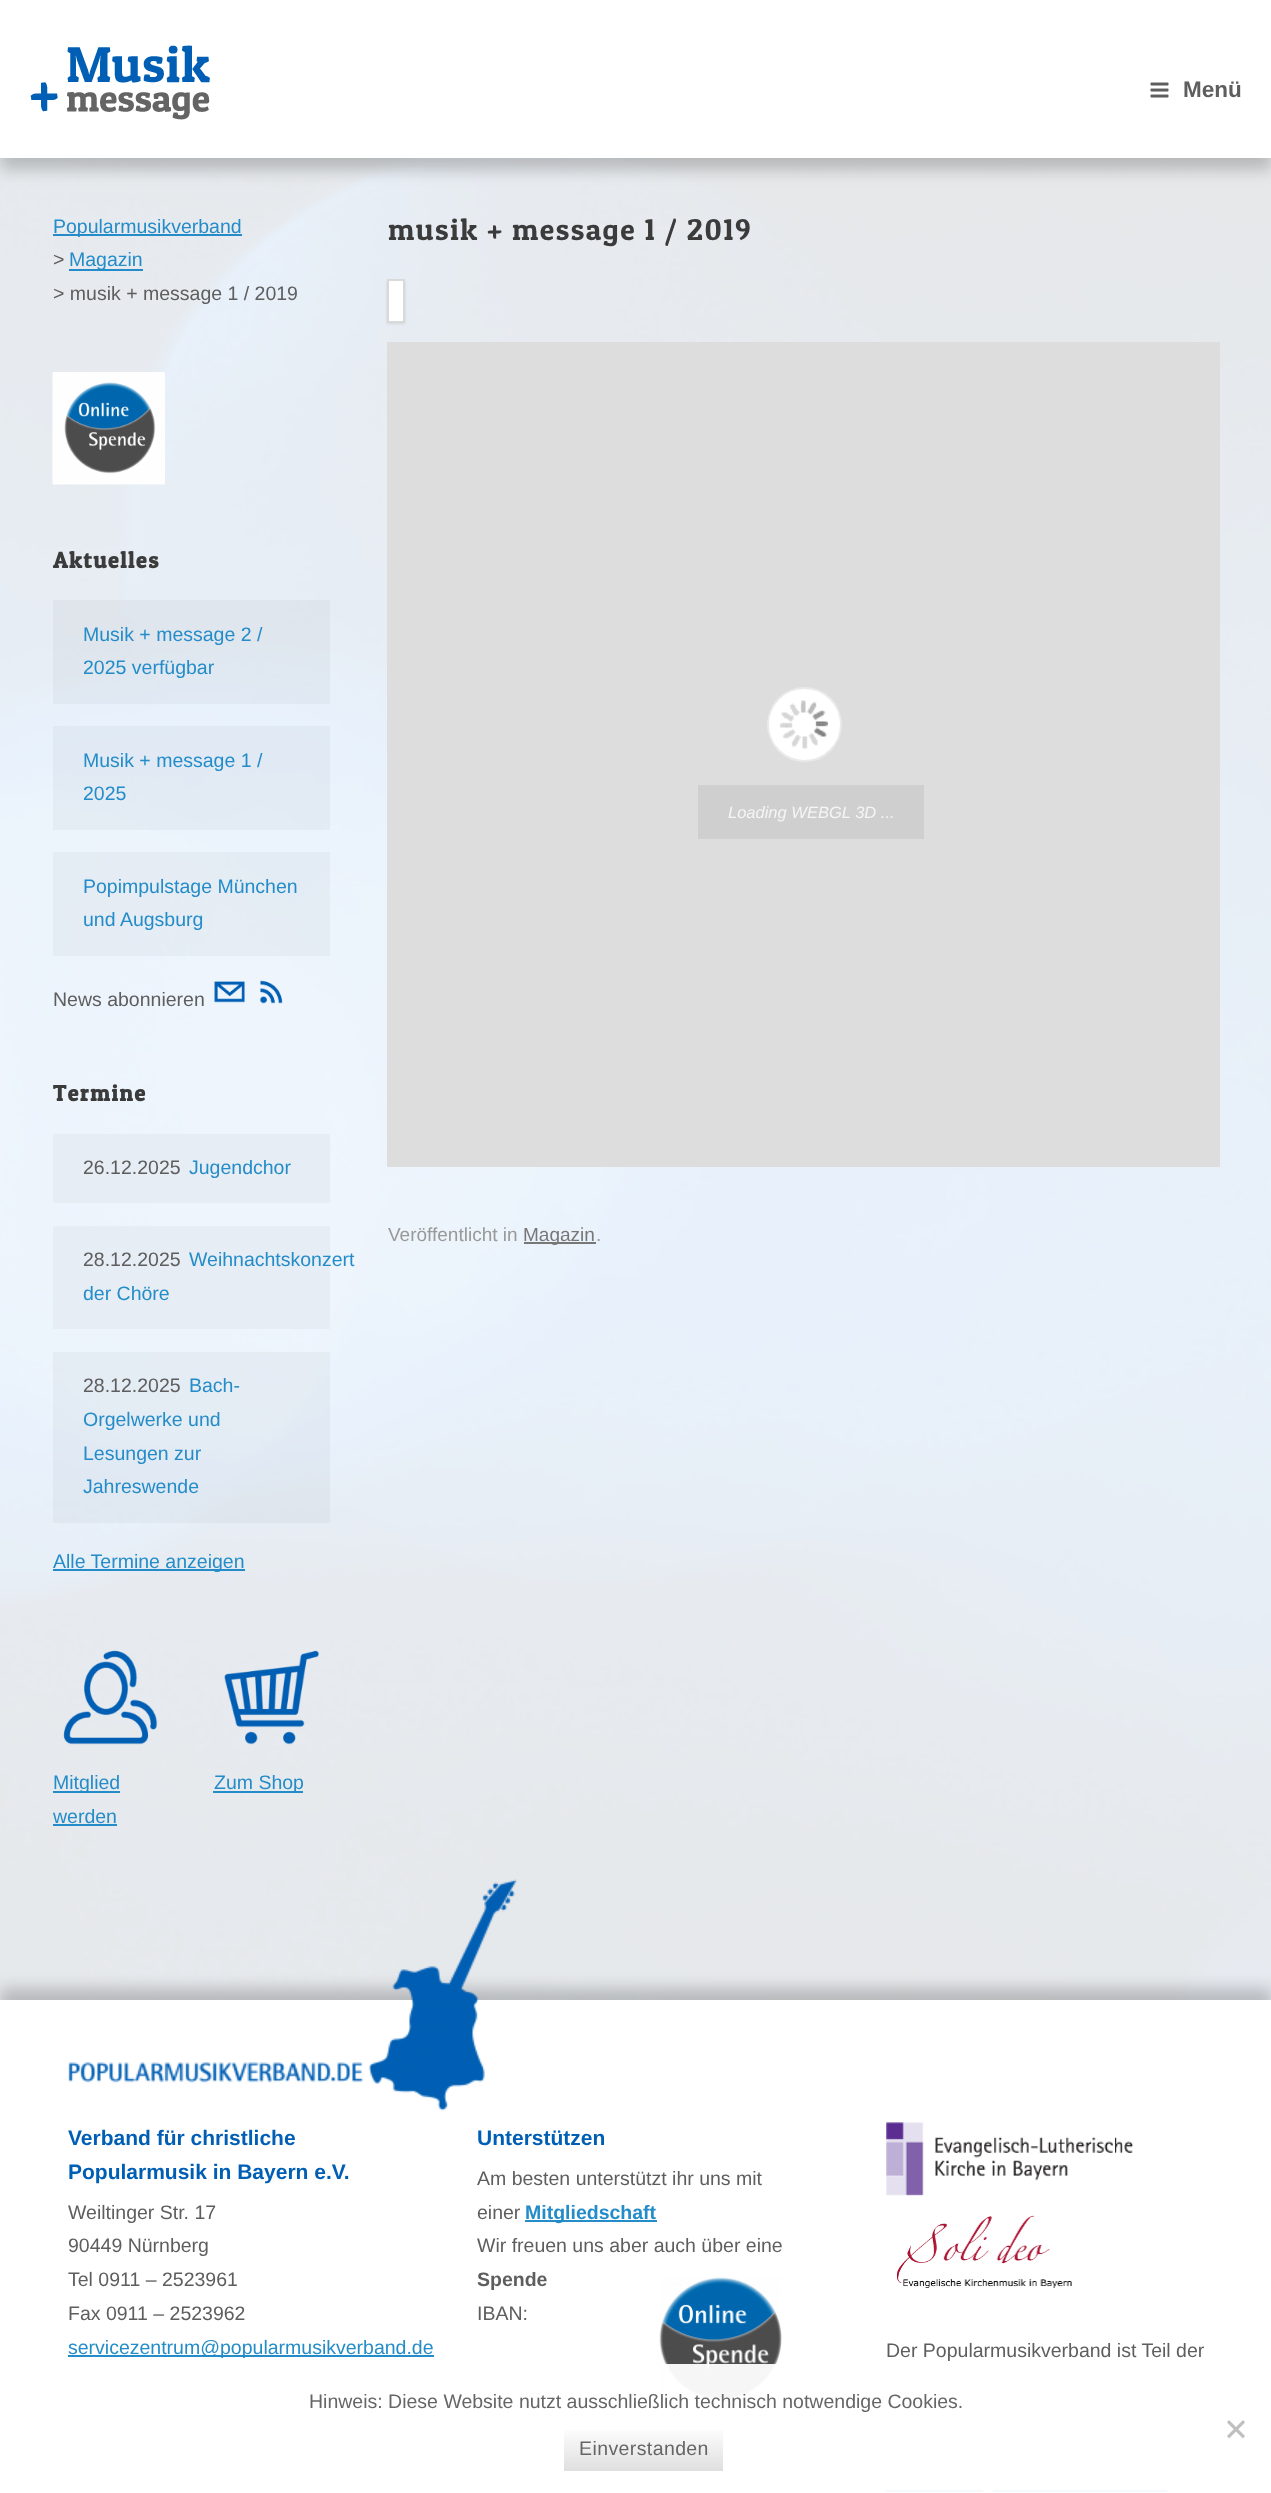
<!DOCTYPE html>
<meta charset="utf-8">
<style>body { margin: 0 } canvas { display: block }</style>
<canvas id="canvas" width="1271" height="2493"></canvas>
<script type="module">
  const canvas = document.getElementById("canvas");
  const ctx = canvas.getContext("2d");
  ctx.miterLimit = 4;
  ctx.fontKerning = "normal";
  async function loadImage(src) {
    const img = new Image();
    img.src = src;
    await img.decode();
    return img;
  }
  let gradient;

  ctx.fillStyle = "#ffffff";
  ctx.fillRect(0, 0, 1271, 2493);
  ctx.drawImage(await loadImage("img1.png"), 0, 158, 1271, 1842);
  ctx.fillStyle = "rgba(255, 255, 255, 0.9)";
  ctx.fillRect(0, 158, 1271, 1842);
  ctx.fillStyle = "rgba(0, 0, 0, 0.2)";
  ctx.filter = "blur(7.5px)";
  ctx.beginPath();
  ctx.rect(0, 12, 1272, 158);
  ctx.fill();
  ctx.filter = "none";
  ctx.fillStyle = "#ffffff";
  ctx.fillRect(0, 0, 1271, 158);
  ctx.drawImage(await loadImage("img2.png"), 30, 45, 180, 75);
  ctx.drawImage(await loadImage("img3.png"), 1150, 82, 19, 16);
  ctx.font = "bold 22.5px Liberation Sans";
  ctx.fillStyle = "#5e5e5e";
  ctx.fillText("Menü", 1183, 97);
  ctx.fillStyle = "#248cc8";
  ctx.fillRect(53, 234, 189, 2);
  ctx.font = "19.5px Liberation Sans";
  ctx.fillText("Popularmusikverband", 53, 233);
  ctx.fillStyle = "#5e5e5e";
  ctx.fillText(">", 53, 266);
  ctx.fillStyle = "#248cc8";
  ctx.fillRect(69, 269, 74, 2);
  ctx.fillText("Magazin", 69, 266);
  ctx.fillStyle = "#5e5e5e";
  ctx.fillText("> musik + message 1 / 2019", 53, 300);
  ctx.drawImage(await loadImage("img4.png"), 52, 372, 113, 113);
  ctx.letterSpacing = "1.5px";
  ctx.font = "bold 22.5px Patua One";
  ctx.fillStyle = "#3b3b3b";
  ctx.fillText("Aktuelles", 53, 568);
  ctx.fillStyle = "rgba(0, 0, 0, 0.03)";
  ctx.fillRect(53, 600, 277, 104);
  ctx.letterSpacing = "0px";
  ctx.font = "19.5px Liberation Sans";
  ctx.fillStyle = "#248cc8";
  ctx.fillText("Musik + message 2 /", 83, 641);
  ctx.fillText("2025 verfügbar", 83, 674);
  ctx.fillStyle = "rgba(0, 0, 0, 0.03)";
  ctx.fillRect(53, 726, 277, 104);
  ctx.fillStyle = "#248cc8";
  ctx.fillText("Musik + message 1 /", 83, 767);
  ctx.fillText("2025", 83, 800);
  ctx.fillStyle = "rgba(0, 0, 0, 0.03)";
  ctx.fillRect(53, 852, 277, 104);
  ctx.fillStyle = "#248cc8";
  ctx.fillText("Popimpulstage München", 83, 893);
  ctx.fillText("und Augsburg", 83, 926);
  ctx.fillStyle = "#5e5e5e";
  ctx.fillText("News abonnieren", 53, 1006);
  ctx.drawImage(await loadImage("img5.png"), 214, 981, 31, 22);
  ctx.drawImage(await loadImage("img6.png"), 260, 980, 23, 24);
  ctx.letterSpacing = "1.5px";
  ctx.font = "bold 22.5px Patua One";
  ctx.fillStyle = "#3b3b3b";
  ctx.fillText("Termine", 53, 1101);
  ctx.fillStyle = "#e6edf5";
  ctx.fillRect(53, 1134, 277, 69);
  ctx.letterSpacing = "0px";
  ctx.font = "19.5px Liberation Sans";
  ctx.fillStyle = "#5e5e5e";
  ctx.fillText("26.12.2025", 83, 1174);
  ctx.fillStyle = "#248cc8";
  ctx.fillText("Jugendchor", 189, 1174);
  ctx.fillStyle = "#e6edf5";
  ctx.fillRect(53, 1226, 277, 103);
  ctx.fillStyle = "#5e5e5e";
  ctx.fillText("28.12.2025", 83, 1266);
  ctx.fillStyle = "#248cc8";
  ctx.fillText("Weihnachtskonzert", 189, 1266);
  ctx.fillText("der Chöre", 83, 1300);
  ctx.fillStyle = "rgba(0, 0, 0, 0.03)";
  ctx.fillRect(53, 1352, 277, 171);
  ctx.fillStyle = "#5e5e5e";
  ctx.fillText("28.12.2025", 83, 1392);
  ctx.fillStyle = "#248cc8";
  ctx.fillText("Bach-", 189, 1392);
  ctx.fillText("Orgelwerke und", 83, 1426);
  ctx.fillText("Lesungen zur", 83, 1460);
  ctx.fillText("Jahreswende", 83, 1493);
  ctx.fillRect(53, 1569, 192, 2);
  ctx.fillText("Alle Termine anzeigen", 53, 1568);
  ctx.drawImage(await loadImage("img7.png"), 63, 1650, 95, 95);
  ctx.fillRect(53, 1791, 67, 2);
  ctx.fillText("Mitglied", 53, 1789);
  ctx.fillText("werden", 53, 1823);
  ctx.fillRect(53, 1824, 64, 2);
  ctx.drawImage(await loadImage("img8.png"), 224, 1650, 95, 95);
  ctx.fillRect(213, 1791, 90, 2);
  ctx.fillText("Zum Shop", 214, 1789);
  ctx.letterSpacing = "1.5px";
  ctx.font = "30px Patua One";
  ctx.fillStyle = "#3b3b3b";
  ctx.fillText("musik + message 1 / 2019", 388, 240);
  ctx.fillStyle = "rgba(0, 0, 0, 0.09)";
  ctx.filter = "blur(1.5px)";
  ctx.beginPath();
  ctx.rect(387, 281, 18, 43);
  ctx.fill();
  ctx.filter = "none";
  ctx.fillStyle = "#ffffff";
  ctx.beginPath();
  ctx.rect(388, 280, 16, 42);
  ctx.fill();
  ctx.strokeStyle = "#d9d9d9";
  ctx.lineWidth = 2;
  ctx.stroke();
  ctx.fillStyle = "#dddddd";
  ctx.fillRect(387, 342, 833, 825);
  ctx.fillStyle = "#ffffff";
  ctx.beginPath();
  ctx.arc(804.5, 724.5, 37.5, 0, Math.PI * 2);
  ctx.fill();
  ctx.beginPath();
  ctx.arc(804.5, 724.5, 36.5, 0, Math.PI * 2);
  ctx.strokeStyle = "rgba(150, 150, 150, 0.2)";
  ctx.stroke();
  ctx.drawImage(await loadImage("img9.png"), 780, 700, 48, 49);
  ctx.fillStyle = "#cfcfcf";
  ctx.fillRect(698, 785, 226, 54);
  ctx.letterSpacing = "0px";
  ctx.font = "italic 16.5px Liberation Sans";
  ctx.fillStyle = "#f5f5f5";
  ctx.fillText("Loading WEBGL 3D ...", 728, 818);
  ctx.font = "19px Liberation Sans";
  ctx.fillStyle = "#999999";
  ctx.fillText("Veröffentlicht in", 388, 1241);
  ctx.fillStyle = "#777777";
  ctx.fillRect(524, 1242, 72, 2);
  ctx.fillText("Magazin", 523, 1241);
  ctx.fillStyle = "#999999";
  ctx.fillText(".", 596, 1241);
  ctx.fillStyle = "rgba(0, 0, 0, 0.2)";
  ctx.filter = "blur(7.5px)";
  ctx.beginPath();
  ctx.rect(0, 1988, 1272, 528);
  ctx.fill();
  ctx.filter = "none";
  ctx.fillStyle = "#ffffff";
  ctx.fillRect(0, 2000, 1271, 493);
  ctx.drawImage(await loadImage("img10.png"), 68, 1879, 449, 232);
  ctx.font = "bold 21px Liberation Sans";
  ctx.fillStyle = "#005fb4";
  ctx.fillText("Verband für christliche", 68, 2145);
  ctx.fillText("Popularmusik in Bayern e.V.", 68, 2179);
  ctx.font = "19.5px Liberation Sans";
  ctx.fillStyle = "#5e5e5e";
  ctx.fillText("Weiltinger Str. 17", 68, 2219);
  ctx.fillText("90449 Nürnberg", 68, 2252);
  ctx.fillText("Tel 0911 – 2523961", 68, 2286);
  ctx.fillText("Fax 0911 – 2523962", 68, 2320);
  ctx.fillStyle = "#248cc8";
  ctx.fillRect(68, 2355, 366, 2);
  ctx.fillText("servicezentrum@popularmusikverband.de", 68, 2354);
  ctx.font = "bold 21px Liberation Sans";
  ctx.fillStyle = "#005fb4";
  ctx.fillText("Unterstützen", 477, 2145);
  ctx.font = "19.5px Liberation Sans";
  ctx.fillStyle = "#5e5e5e";
  ctx.fillText("Am besten unterstützt ihr uns mit", 477, 2185);
  ctx.fillText("einer", 477, 2219);
  ctx.fillStyle = "#248cc8";
  ctx.fillRect(525, 2220, 132, 2);
  ctx.font = "bold 19.5px Liberation Sans";
  ctx.fillText("Mitgliedschaft", 525, 2219);
  ctx.font = "19.5px Liberation Sans";
  ctx.fillStyle = "#5e5e5e";
  ctx.fillText("Wir freuen uns aber auch über eine", 477, 2252);
  ctx.font = "bold 19.5px Liberation Sans";
  ctx.fillText("Spende", 477, 2286);
  ctx.drawImage(await loadImage("img11.png"), 659, 2277, 123, 123);
  ctx.font = "19.5px Liberation Sans";
  ctx.fillText("IBAN:", 477, 2320);
  ctx.drawImage(await loadImage("img12.png"), 886, 2122, 248, 74);
  ctx.drawImage(await loadImage("img13.png"), 896, 2215, 176, 73);
  ctx.fillText("Der Popularmusikverband ist Teil der", 886, 2357);
  ctx.fillStyle = "#248cc8";
  ctx.fillRect(885, 2490, 98, 2);
  ctx.fillRect(993, 2490, 174, 2);
  ctx.fillStyle = "rgba(255, 255, 255, 0.95)";
  ctx.fillRect(665, 2364, 502, 128);
  ctx.fillStyle = "#666666";
  ctx.fillText("Hinweis: Diese Website nutzt ausschließlich technisch notwendige Cookies.", 309, 2408);
  ctx.fillStyle = "#bfbfbf";
  ctx.beginPath();
  ctx.moveTo(1243, 2420);
  ctx.lineTo(1245, 2422.5);
  ctx.lineTo(1229, 2438.5);
  ctx.lineTo(1227, 2436);
  ctx.closePath();
  ctx.fill();
  ctx.beginPath();
  ctx.moveTo(1227, 2422.5);
  ctx.lineTo(1229, 2420);
  ctx.lineTo(1245, 2436);
  ctx.lineTo(1243, 2438.5);
  ctx.closePath();
  ctx.fill();
  gradient = ctx.createLinearGradient(564, 2471, 564, 2426);
  gradient.addColorStop(0, "#dfdfdf");
  gradient.addColorStop(1, "#ffffff");
  ctx.fillStyle = gradient;
  ctx.fillRect(564, 2430, 159, 41);
  ctx.letterSpacing = "0.4px";
  ctx.fillStyle = "#666666";
  ctx.fillText("Einverstanden", 579, 2455);
</script>
